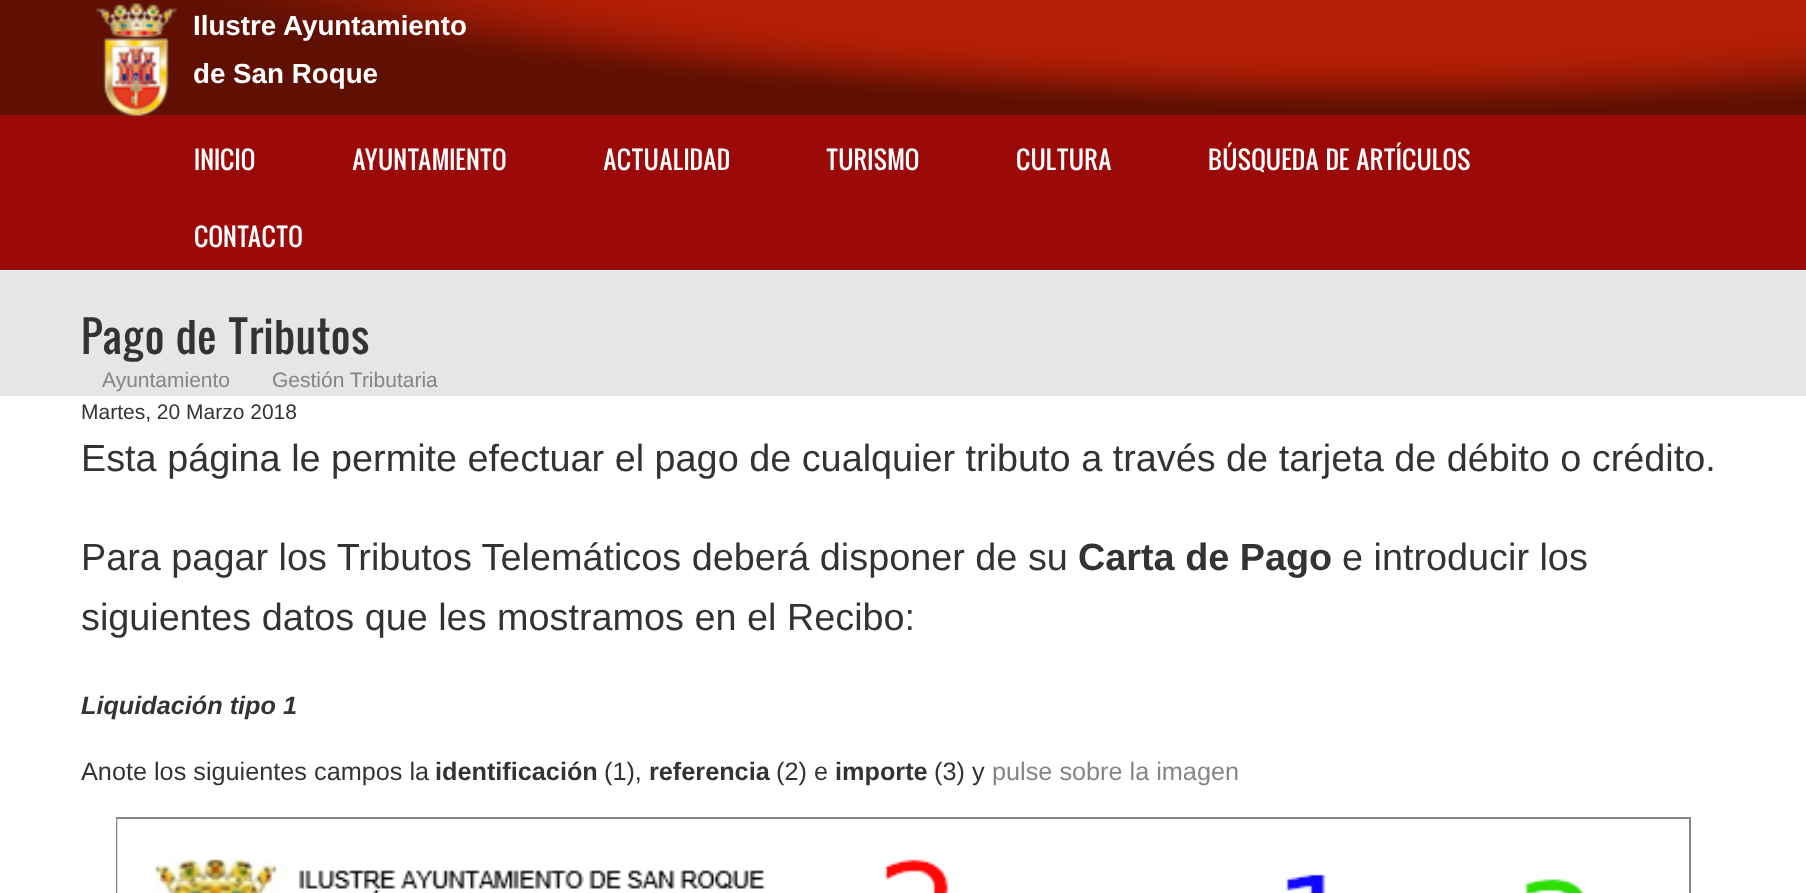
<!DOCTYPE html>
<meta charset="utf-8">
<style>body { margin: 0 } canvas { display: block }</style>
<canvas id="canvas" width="1806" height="893"></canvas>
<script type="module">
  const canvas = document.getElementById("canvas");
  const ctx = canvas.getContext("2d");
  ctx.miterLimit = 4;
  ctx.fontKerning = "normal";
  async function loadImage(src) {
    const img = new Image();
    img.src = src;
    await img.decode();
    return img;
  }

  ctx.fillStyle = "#ffffff";
  ctx.fillRect(0, 0, 1806, 893);
  ctx.fillStyle = "#b51f06";
  ctx.fillRect(0, 0, 1806, 116);
  ctx.drawImage(await loadImage("img1.png"), 0, 0, 1806, 116);
  ctx.drawImage(await loadImage("img2.png"), 96, 3, 82, 113);
  ctx.font = "bold 27.75px Liberation Sans";
  ctx.fillStyle = "#ffffff";
  ctx.fillText("Ilustre Ayuntamiento", 193, 35);
  ctx.fillText("de San Roque", 193, 83);
  ctx.fillStyle = "#9b0909";
  ctx.fillRect(0, 116, 1806, 154);
  ctx.font = "24.5px Oswald";
  ctx.fillStyle = "#ffffff";
  ctx.fillText("INICIO", 194, 170);
  ctx.fillText("AYUNTAMIENTO", 352, 170);
  ctx.fillText("ACTUALIDAD", 603, 170);
  ctx.fillText("TURISMO", 826, 170);
  ctx.fillText("CULTURA", 1016, 170);
  ctx.fillText("BÚSQUEDA DE ARTÍCULOS", 1208, 170);
  ctx.fillText("CONTACTO", 194, 247);
  ctx.fillStyle = "#e6e6e6";
  ctx.fillRect(0, 271, 1806, 125);
  ctx.font = "42px Oswald";
  ctx.fillStyle = "#333333";
  ctx.fillText("Pago de Tributos", 81, 354);
  ctx.font = "21px Liberation Sans";
  ctx.fillStyle = "#858585";
  ctx.fillText("Ayuntamiento", 102, 387);
  ctx.fillText("Gestión Tributaria", 272, 387);
  ctx.fillStyle = "#333333";
  ctx.fillText("Martes, 20 Marzo 2018", 81, 419);
  ctx.font = "37.8px Liberation Sans";
  ctx.fillText("Esta página le permite efectuar el pago de cualquier tributo a través de tarjeta de débito o crédito.", 81, 471);
  ctx.fillText("Para pagar los Tributos Telemáticos deberá disponer de su", 81, 570);
  ctx.font = "bold 37.8px Liberation Sans";
  ctx.fillText("Carta de Pago", 1078, 570);
  ctx.font = "37.8px Liberation Sans";
  ctx.fillText("e introducir los", 1342, 570);
  ctx.fillText("siguientes datos que les mostramos en el Recibo:", 81, 630);
  ctx.font = "italic bold 25.25px Liberation Sans";
  ctx.fillText("Liquidación tipo 1", 81, 714);
  ctx.font = "25.25px Liberation Sans";
  ctx.fillText("Anote los siguientes campos la", 81, 780);
  ctx.font = "bold 25.25px Liberation Sans";
  ctx.fillText("identificación", 435, 780);
  ctx.font = "25.25px Liberation Sans";
  ctx.fillText("(1),", 604, 780);
  ctx.font = "bold 25.25px Liberation Sans";
  ctx.fillText("referencia", 649, 780);
  ctx.font = "25.25px Liberation Sans";
  ctx.fillText("(2) e", 776, 780);
  ctx.font = "bold 25.25px Liberation Sans";
  ctx.fillText("importe", 835, 780);
  ctx.font = "25.25px Liberation Sans";
  ctx.fillText("(3) y", 934, 780);
  ctx.fillStyle = "#858585";
  ctx.fillText("pulse sobre la imagen", 992, 780);
  ctx.strokeStyle = "#858585";
  ctx.lineWidth = 2;
  ctx.strokeRect(117, 818, 1573, 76);
  ctx.drawImage(await loadImage("img3.png"), 117, 819, 1468, 74);
</script>
